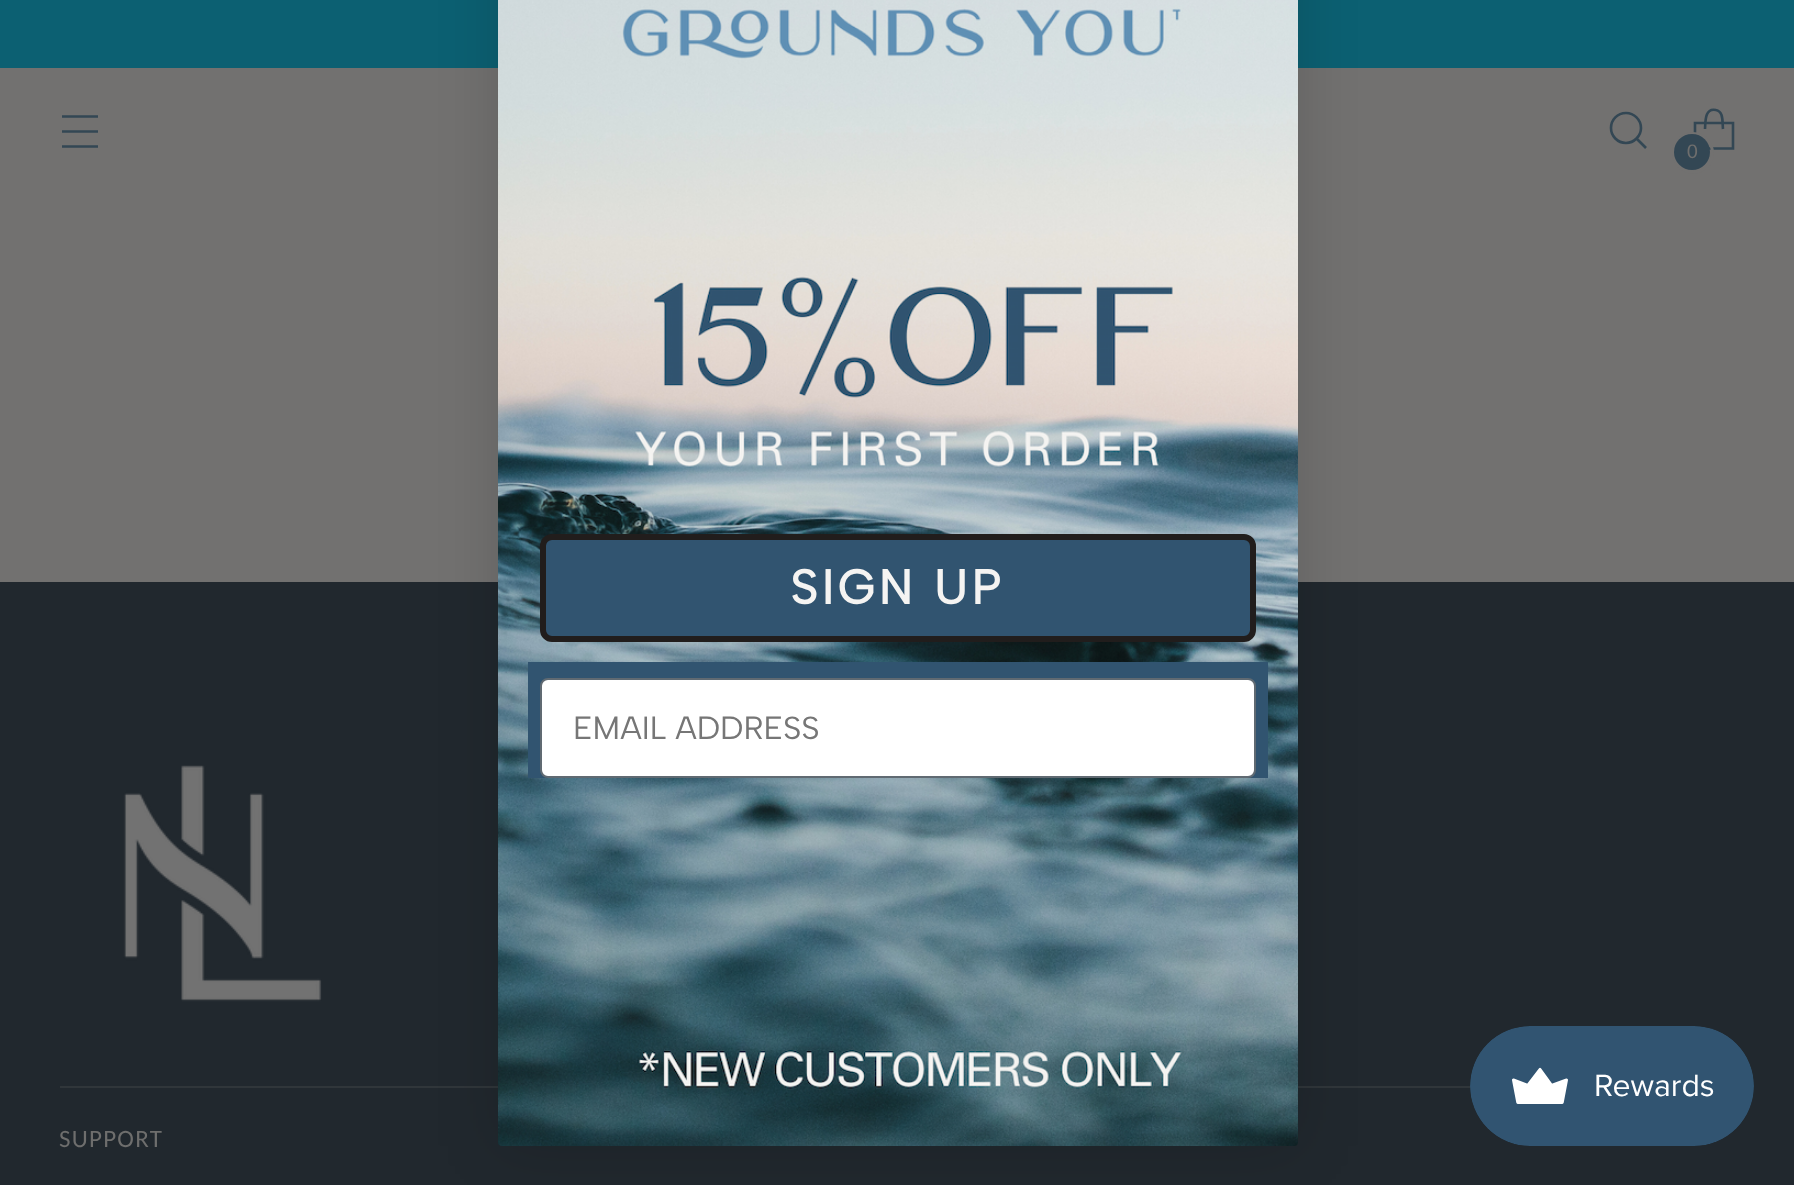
<!DOCTYPE html>
<meta charset="utf-8">
<style>body { margin: 0 } canvas { display: block }</style>
<canvas id="canvas" width="1794" height="1185"></canvas>
<script type="module">
  const canvas = document.getElementById("canvas");
  const ctx = canvas.getContext("2d");
  ctx.miterLimit = 4;
  ctx.fontKerning = "normal";
  async function loadImage(src) {
    const img = new Image();
    img.src = src;
    await img.decode();
    return img;
  }

  ctx.fillStyle = "#727170";
  ctx.fillRect(0, 0, 1794, 1185);
  ctx.fillStyle = "#0c6072";
  ctx.fillRect(0, 0, 1794, 68);
  ctx.beginPath();
  ctx.moveTo(62, 131.5);
  ctx.lineTo(98, 131.5);
  ctx.moveTo(62, 116.5);
  ctx.lineTo(98, 116.5);
  ctx.moveTo(62, 146.5);
  ctx.lineTo(98, 146.5);
  ctx.strokeStyle = "#334754";
  ctx.lineWidth = 2.6;
  ctx.stroke();
  ctx.beginPath();
  ctx.moveTo(1626, 143);
  ctx.bezierCurveTo(1634, 143, 1641, 136, 1641, 128);
  ctx.bezierCurveTo(1641, 119.5, 1634, 113, 1626, 113);
  ctx.bezierCurveTo(1617.5, 113, 1611, 119.5, 1611, 128);
  ctx.bezierCurveTo(1611, 136, 1617.5, 143, 1626, 143);
  ctx.closePath();
  ctx.lineCap = "round";
  ctx.stroke();
  ctx.beginPath();
  ctx.moveTo(1636.5, 138.5);
  ctx.lineTo(1646, 148);
  ctx.lineCap = "butt";
  ctx.stroke();
  ctx.beginPath();
  ctx.moveTo(1723, 129);
  ctx.bezierCurveTo(1722.5, 124.5, 1723, 119.5, 1721.5, 115);
  ctx.bezierCurveTo(1720.5, 112.5, 1718.5, 110.5, 1716, 110);
  ctx.bezierCurveTo(1704.5, 107.5, 1705.5, 122, 1705, 129);
  ctx.lineJoin = "bevel";
  ctx.stroke();
  ctx.beginPath();
  ctx.moveTo(1733, 148.5);
  ctx.lineTo(1733, 123);
  ctx.lineTo(1695, 123);
  ctx.lineTo(1695, 148.5);
  ctx.closePath();
  ctx.lineJoin = "miter";
  ctx.stroke();
  ctx.beginPath();
  ctx.arc(1693, 153, 19.5, 0, Math.PI * 2);
  ctx.strokeStyle = "#727170";
  ctx.lineWidth = 3;
  ctx.stroke();
  ctx.fillStyle = "#334754";
  ctx.beginPath();
  ctx.arc(1692, 152, 18, 0, Math.PI * 2);
  ctx.fill();
  ctx.font = "21px Carlito";
  ctx.fillStyle = "#6e6e6d";
  ctx.fillText("0", 1687, 158);
  ctx.fillStyle = "#21282e";
  ctx.fillRect(0, 582, 1794, 603);
  ctx.fillStyle = "#30363a";
  ctx.fillRect(60, 1086, 1411, 2);
  ctx.drawImage(await loadImage("img1.png"), 123, 765, 199, 237);
  ctx.letterSpacing = "1.25px";
  ctx.font = "25px Carlito";
  ctx.fillStyle = "#6e6e6d";
  ctx.fillText("SUPPORT", 59, 1147);
  ctx.fillStyle = "rgba(0, 0, 0, 0.15)";
  ctx.filter = "blur(30px)";
  ctx.beginPath();
  ctx.roundRect(498, -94, 800, 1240, 4);
  ctx.fill();
  ctx.filter = "none";
  ctx.drawImage(await loadImage("img2.png"), 498, 0, 800, 1146);
  ctx.fillStyle = "#315470";
  ctx.beginPath();
  ctx.roundRect(543, 537, 710, 102, 9);
  ctx.fill();
  ctx.strokeStyle = "#211d1c";
  ctx.lineWidth = 6;
  ctx.stroke();
  ctx.letterSpacing = "4px";
  ctx.font = "bold 48px Albert Sans";
  ctx.fillStyle = "#f5f4f2";
  ctx.fillText("SIGN UP", 790, 604);
  ctx.fillStyle = "#315470";
  ctx.fillRect(528, 662, 740, 116);
  ctx.fillStyle = "#ffffff";
  ctx.beginPath();
  ctx.roundRect(541, 679, 714, 98, 7);
  ctx.fill();
  ctx.strokeStyle = "#606a72";
  ctx.lineWidth = 2;
  ctx.stroke();
  ctx.letterSpacing = "0px";
  ctx.font = "32px Albert Sans";
  ctx.fillStyle = "#767676";
  ctx.fillText("EMAIL ADDRESS", 573, 739);
  ctx.drawImage(await loadImage("img3.png"), 1470, 1026, 284, 120);
</script>
